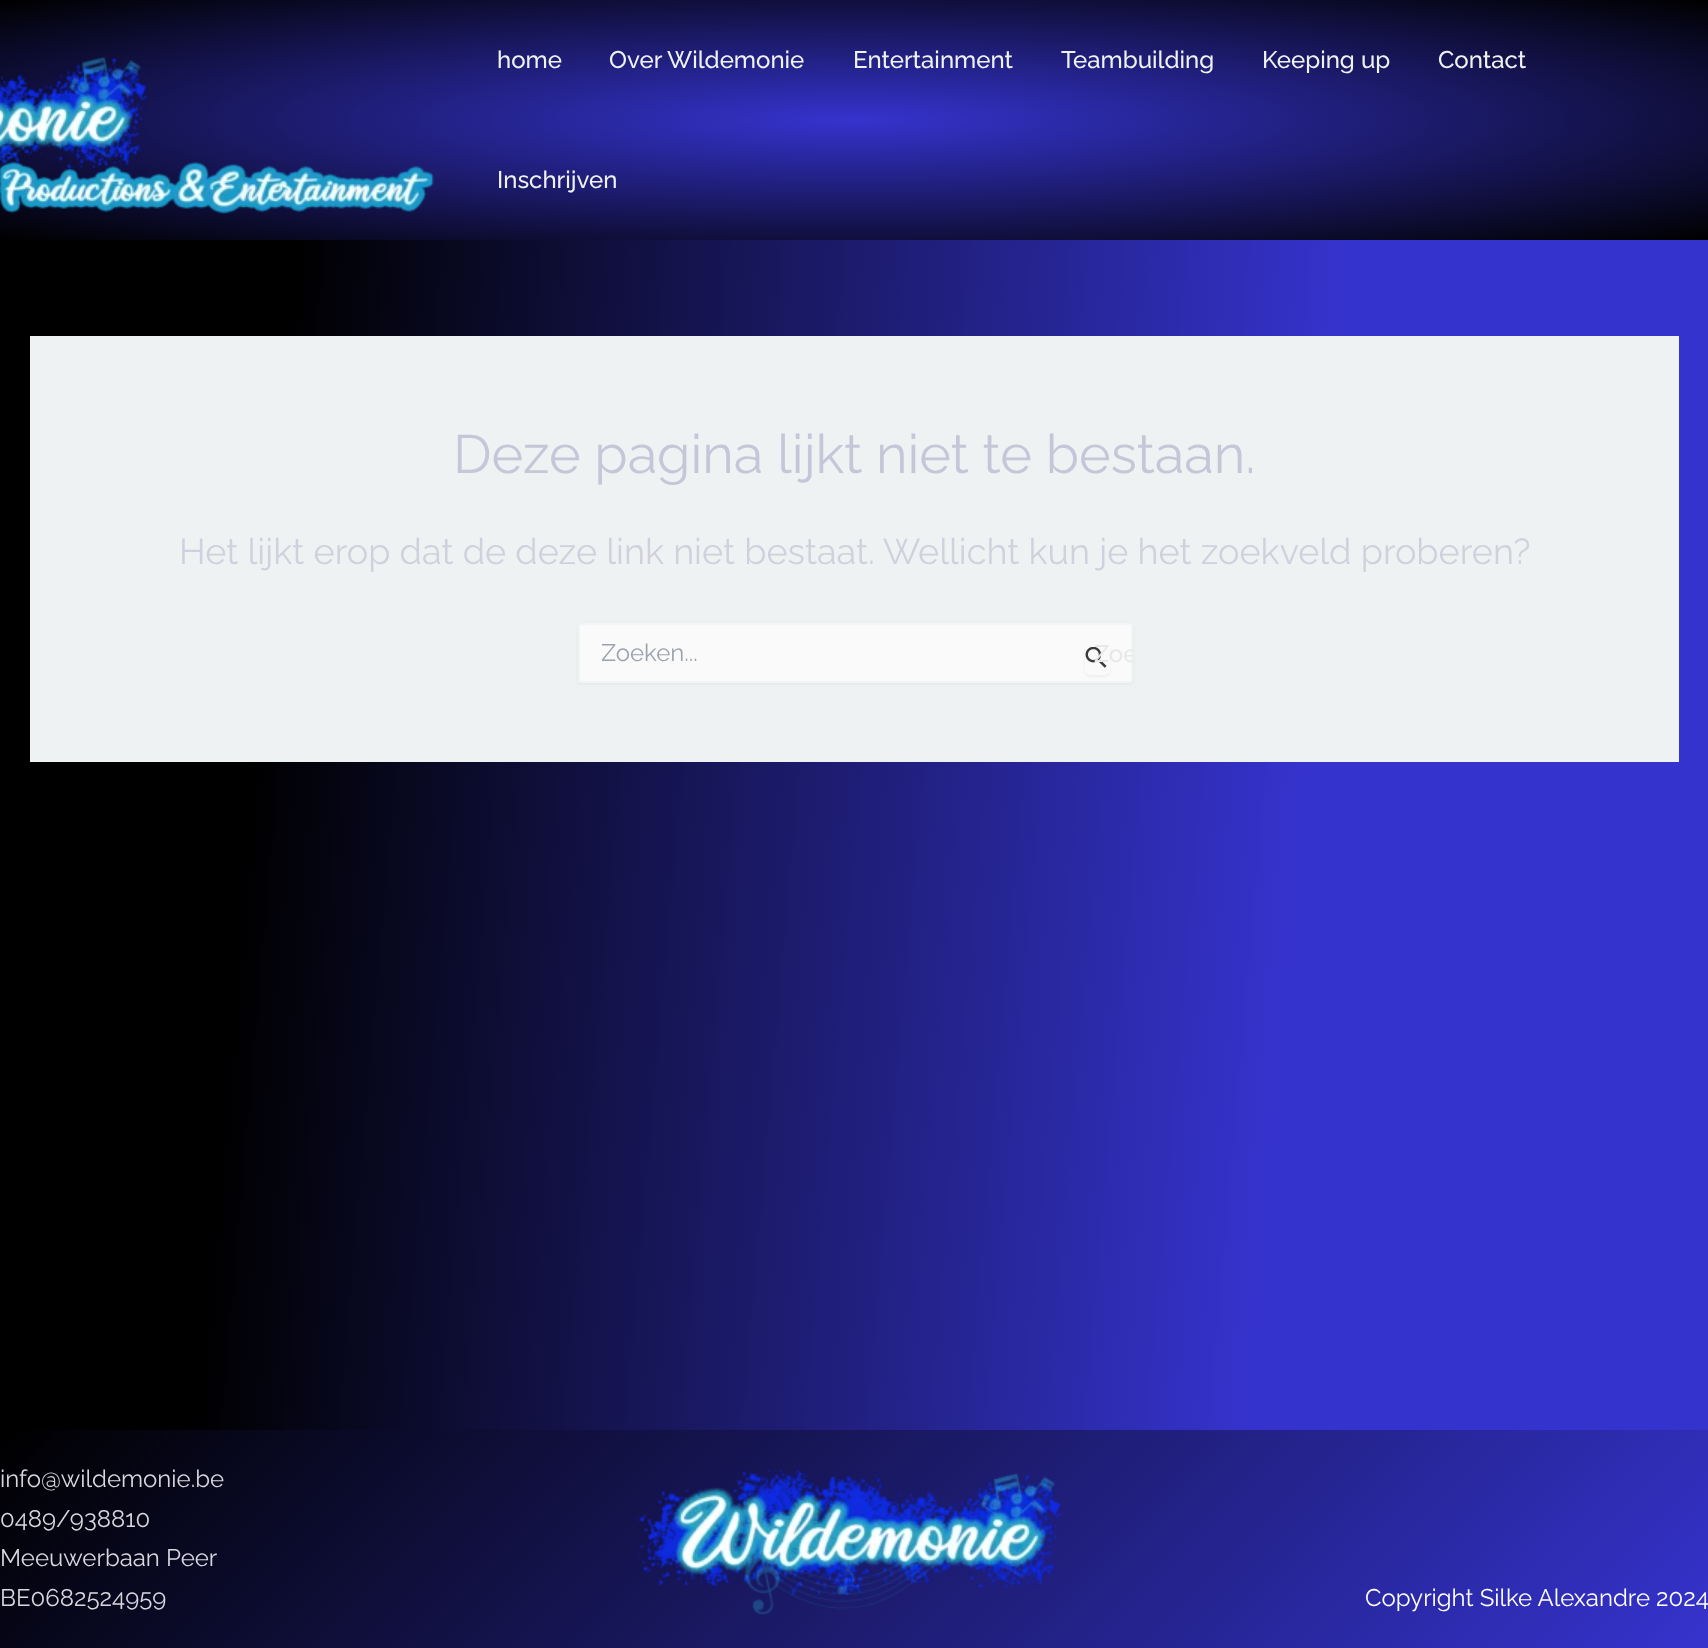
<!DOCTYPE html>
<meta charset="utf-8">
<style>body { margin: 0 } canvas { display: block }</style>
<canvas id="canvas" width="1708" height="1648"></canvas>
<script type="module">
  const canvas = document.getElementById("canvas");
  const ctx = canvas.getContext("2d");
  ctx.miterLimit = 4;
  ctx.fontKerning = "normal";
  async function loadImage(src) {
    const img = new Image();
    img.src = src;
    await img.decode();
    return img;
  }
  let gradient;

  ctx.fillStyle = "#ffffff";
  ctx.fillRect(0, 0, 1708, 1648);
  gradient = ctx.createLinearGradient(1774, 905, -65, 744);
  gradient.addColorStop(0.26, "#3533cd");
  gradient.addColorStop(0.83, "#000000");
  ctx.fillStyle = gradient;
  ctx.fillRect(0, 240, 1708, 1190);
  gradient = ctx.createRadialGradient(854, 852.71, 0, 854, 852.71, 1208);
  gradient.addColorStop(0, "#3533cd");
  gradient.addColorStop(1, "#000000");
  ctx.fillStyle = gradient;
  ctx.beginPath();
  ctx.rect(0, 0, 1708, 240);
  ctx.save();
  ctx.clip();
  ctx.scale(1, 170 / 1208);
  ctx.fillRect(0, 0, 1708, 11711);
  ctx.restore();
  ctx.drawImage(await loadImage("img1.png"), 0, 57, 148, 113);
  ctx.drawImage(await loadImage("img2.png"), 0, 161, 434, 53);
  ctx.font = "500 24px Raleway";
  ctx.fillStyle = "#eff2f3";
  ctx.fillText("home", 497, 68);
  ctx.fillText("Over Wildemonie", 609, 68);
  ctx.fillText("Entertainment", 853, 68);
  ctx.fillText("Teambuilding", 1061, 68);
  ctx.fillText("Keeping up", 1262, 68);
  ctx.fillText("Contact", 1438, 68);
  ctx.fillText("Inschrijven", 497, 188);
  ctx.fillRect(30, 336, 1649, 426);
  ctx.font = "54px Raleway";
  ctx.fillStyle = "#c6c6d8";
  ctx.fillText("Deze pagina lijkt niet te bestaan.", 453, 473);
  ctx.font = "36px Raleway";
  ctx.fillStyle = "#d1d1dd";
  ctx.fillText("Het lijkt erop dat de deze link niet bestaat. Wellicht kun je het zoekveld proberen?", 179, 564);
  ctx.fillStyle = "rgba(0, 0, 0, 0.05)";
  ctx.filter = "blur(1.5px)";
  ctx.beginPath();
  ctx.roundRect(578, 624, 555, 60, 3);
  ctx.fill();
  ctx.filter = "none";
  ctx.fillStyle = "#fafafa";
  ctx.beginPath();
  ctx.roundRect(579, 624, 553, 58, 2);
  ctx.fill();
  ctx.strokeStyle = "#f2f5f7";
  ctx.lineWidth = 2;
  ctx.stroke();
  ctx.save();
  ctx.beginPath();
  ctx.rect(602, 639, 456, 29);
  ctx.clip();
  ctx.font = "24px Raleway";
  ctx.fillStyle = "#9ca3af";
  ctx.fillText("Zoeken...", 601, 661);
  ctx.restore();
  ctx.save();
  ctx.beginPath();
  ctx.moveTo(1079, 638);
  ctx.lineTo(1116, 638);
  ctx.lineTo(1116, 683);
  ctx.lineTo(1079, 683);
  ctx.closePath();
  ctx.moveTo(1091, 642);
  ctx.lineTo(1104, 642);
  ctx.bezierCurveTo(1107.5, 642, 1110, 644.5, 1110, 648);
  ctx.lineTo(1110, 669);
  ctx.bezierCurveTo(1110, 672.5, 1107.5, 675, 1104, 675);
  ctx.lineTo(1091, 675);
  ctx.bezierCurveTo(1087.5, 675, 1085, 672.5, 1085, 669);
  ctx.lineTo(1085, 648);
  ctx.bezierCurveTo(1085, 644.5, 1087.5, 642, 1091, 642);
  ctx.closePath();
  ctx.clip("evenodd");
  ctx.fillStyle = "rgba(0, 0, 0, 0.05)";
  ctx.filter = "blur(1.5px)";
  ctx.beginPath();
  ctx.roundRect(1085, 644, 25, 33, 6);
  ctx.fill();
  ctx.filter = "none";
  ctx.restore();
  ctx.drawImage(await loadImage("img3.png"), 1085, 647, 22, 21);
  ctx.save();
  ctx.beginPath();
  ctx.roundRect(1065, 623, 68, 63, 3);
  ctx.clip();
  ctx.font = "500 24px Raleway";
  ctx.fillStyle = "#e7e8e8";
  ctx.fillText("Zoe", 1094, 662);
  ctx.restore();
  gradient = ctx.createLinearGradient(372, 1057, 1336, 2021);
  gradient.addColorStop(0, "#000000");
  gradient.addColorStop(1, "#3533cd");
  ctx.fillStyle = gradient;
  ctx.fillRect(0, 1430, 1708, 218);
  ctx.font = "24px Raleway";
  ctx.fillStyle = "#d8d7de";
  ctx.fillText("info@wildemonie.be", 0, 1487);
  ctx.fillText("0489/938810", 0, 1527);
  ctx.fillText("Meeuwerbaan Peer", 0, 1566);
  ctx.fillText("BE0682524959", 0, 1606);
  ctx.drawImage(await loadImage("img4.png"), 638, 1468, 424, 147);
  ctx.fillStyle = "#ffffff";
  ctx.fillText("Copyright Silke Alexandre 2024", 1365, 1606);
</script>
